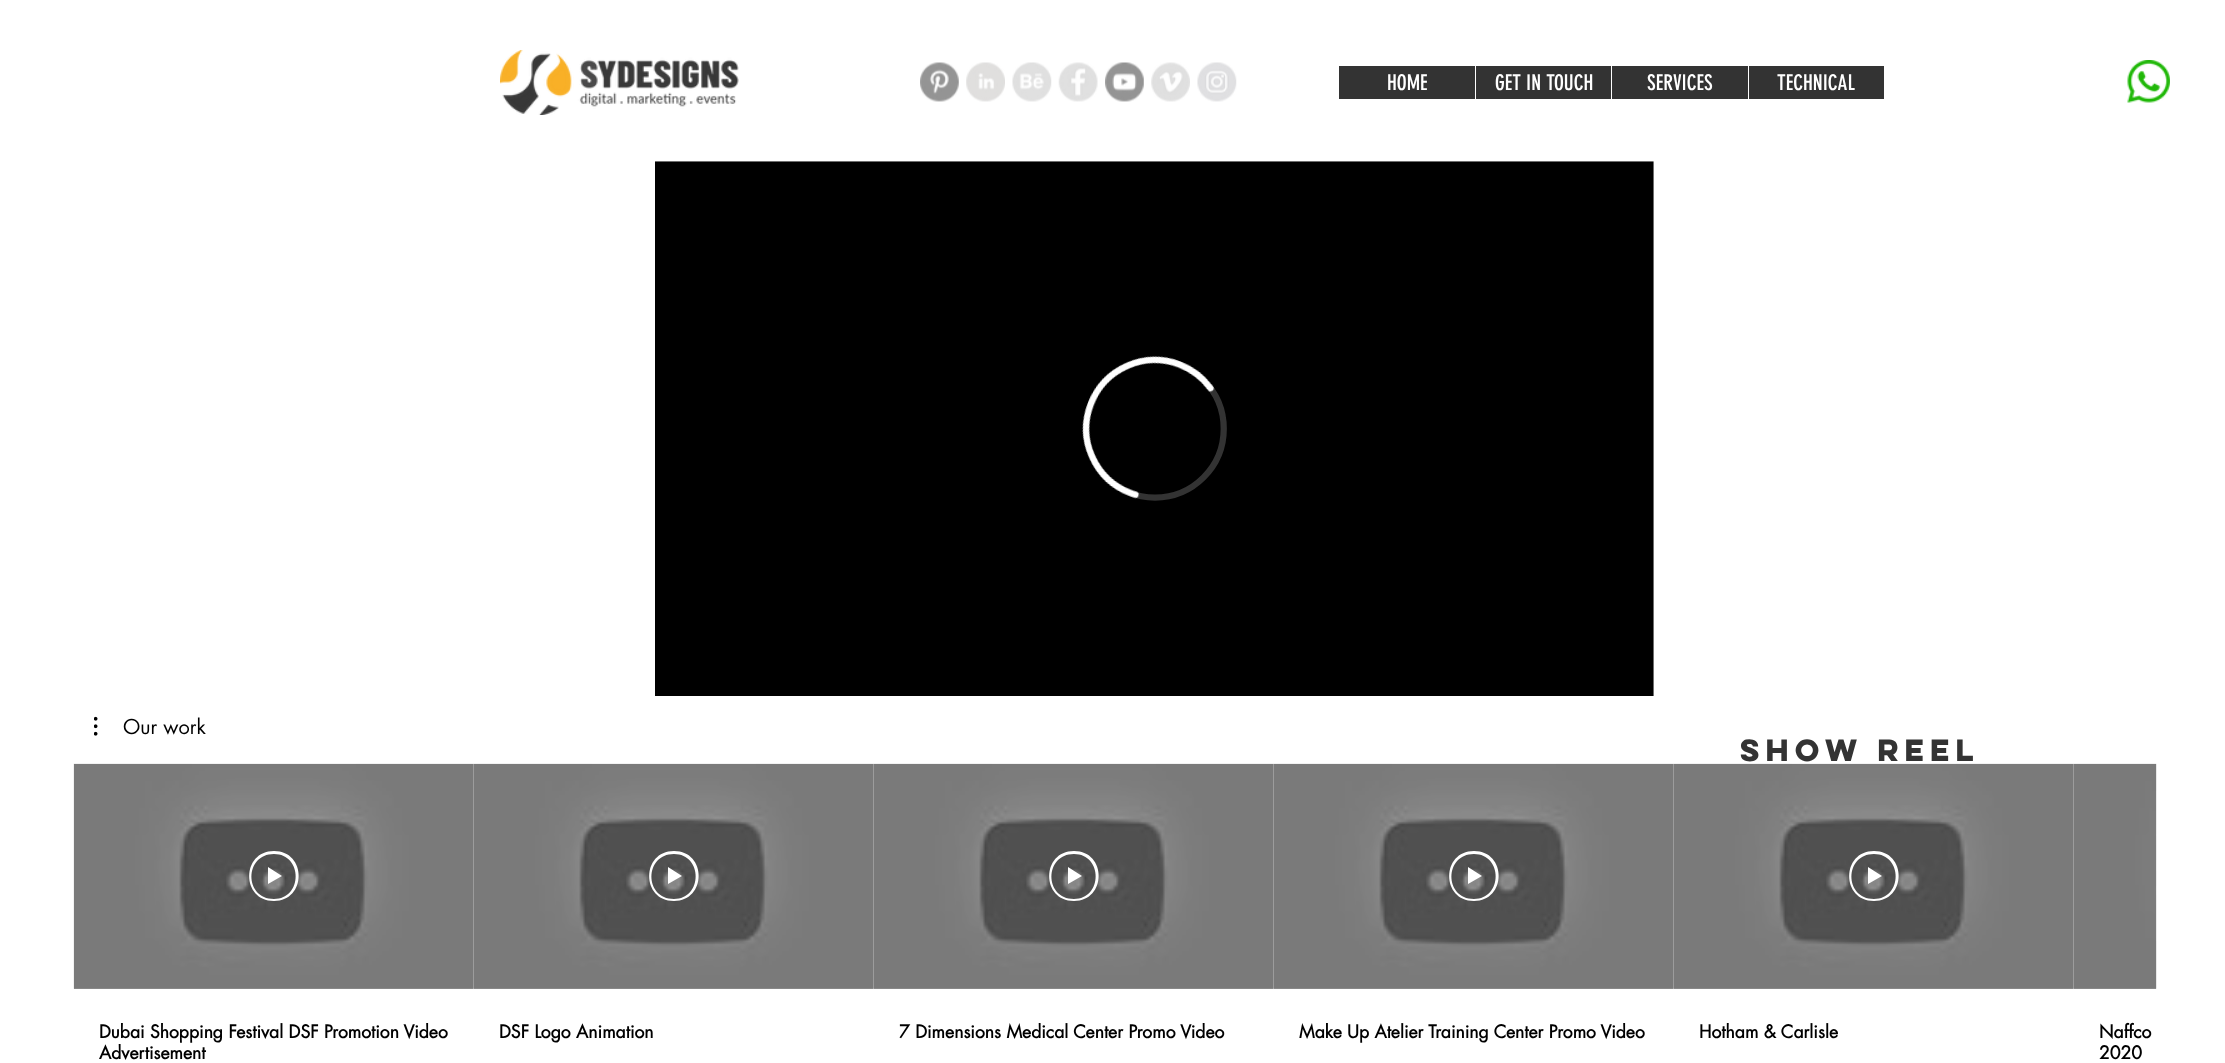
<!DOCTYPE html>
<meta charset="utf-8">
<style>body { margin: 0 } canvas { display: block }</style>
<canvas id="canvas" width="2225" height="1063"></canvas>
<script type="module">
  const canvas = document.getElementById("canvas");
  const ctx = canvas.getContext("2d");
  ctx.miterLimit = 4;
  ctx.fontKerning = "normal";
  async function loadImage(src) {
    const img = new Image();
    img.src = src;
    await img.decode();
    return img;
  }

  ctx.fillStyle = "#ffffff";
  ctx.fillRect(0, 0, 2225, 1063);
  ctx.drawImage(await loadImage("img1.png"), 500, 50, 239, 65);
  ctx.drawImage(await loadImage("img2.png"), 920, 62, 39, 40);
  ctx.drawImage(await loadImage("img3.png"), 966, 62, 39, 40);
  ctx.drawImage(await loadImage("img4.png"), 1012, 62, 40, 40);
  ctx.drawImage(await loadImage("img5.png"), 1058, 62, 40, 40);
  ctx.drawImage(await loadImage("img6.png"), 1105, 62, 39, 40);
  ctx.drawImage(await loadImage("img7.png"), 1151, 62, 39, 40);
  ctx.drawImage(await loadImage("img8.png"), 1197, 62, 40, 40);
  ctx.fillStyle = "#333333";
  ctx.fillRect(1339, 66, 545, 33);
  ctx.font = "21.25px 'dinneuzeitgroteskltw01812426'";
  ctx.fillStyle = "#ffffff";
  ctx.fillText("HOME", 1387, 90);
  ctx.fillRect(1475, 66, 1, 33);
  ctx.fillText("GET IN TOUCH", 1495, 90);
  ctx.fillRect(1611, 66, 1, 33);
  ctx.fillText("SERVICES", 1647, 90);
  ctx.fillRect(1748, 66, 1, 33);
  ctx.fillText("TECHNICAL", 1777, 90);
  ctx.drawImage(await loadImage("img9.png"), 2127, 60, 43, 43);
  ctx.drawImage(await loadImage("img10.png"), 655, 161, 999, 535);
  ctx.drawImage(await loadImage("img11.png"), 94, 716, 4, 20);
  ctx.font = "20px futura";
  ctx.fillStyle = "#000000";
  ctx.fillText("Our work", 123, 734);
  ctx.drawImage(await loadImage("img12.png"), 73, 763, 401, 226);
  ctx.drawImage(await loadImage("img13.png"), 74, 764, 400, 225);
  ctx.fillStyle = "#ffffff";
  ctx.beginPath();
  ctx.moveTo(274, 899);
  ctx.bezierCurveTo(303, 899, 303, 854, 274, 854);
  ctx.bezierCurveTo(244, 854, 244, 899, 274, 899);
  ctx.closePath();
  ctx.moveTo(274, 901);
  ctx.bezierCurveTo(241, 901, 241, 851, 274, 851);
  ctx.bezierCurveTo(307, 851, 307, 901, 274, 901);
  ctx.closePath();
  ctx.moveTo(282, 876);
  ctx.lineTo(268, 867);
  ctx.lineTo(268, 884);
  ctx.closePath();
  ctx.fill();
  ctx.font = "bold 17.5px futura";
  ctx.fillStyle = "#000000";
  ctx.fillText("Dubai Shopping Festival DSF Promotion Video", 99, 1038);
  ctx.fillText("Advertisement", 99, 1059);
  ctx.drawImage(await loadImage("img14.png"), 473, 763, 401, 226);
  ctx.drawImage(await loadImage("img15.png"), 473, 764, 401, 225);
  ctx.fillStyle = "#ffffff";
  ctx.beginPath();
  ctx.moveTo(674, 899);
  ctx.bezierCurveTo(703, 899, 703, 854, 674, 854);
  ctx.bezierCurveTo(644, 854, 644, 899, 674, 899);
  ctx.closePath();
  ctx.moveTo(674, 901);
  ctx.bezierCurveTo(641, 901, 641, 851, 674, 851);
  ctx.bezierCurveTo(707, 851, 707, 901, 674, 901);
  ctx.closePath();
  ctx.moveTo(682, 876);
  ctx.lineTo(668, 867);
  ctx.lineTo(668, 884);
  ctx.closePath();
  ctx.fill();
  ctx.fillStyle = "#000000";
  ctx.fillText("DSF Logo Animation", 499, 1038);
  ctx.drawImage(await loadImage("img16.png"), 873, 763, 401, 226);
  ctx.drawImage(await loadImage("img17.png"), 873, 764, 401, 225);
  ctx.fillStyle = "#ffffff";
  ctx.beginPath();
  ctx.moveTo(1074, 899);
  ctx.bezierCurveTo(1103, 899, 1103, 854, 1074, 854);
  ctx.bezierCurveTo(1044, 854, 1044, 899, 1074, 899);
  ctx.closePath();
  ctx.moveTo(1074, 901);
  ctx.bezierCurveTo(1041, 901, 1041, 851, 1074, 851);
  ctx.bezierCurveTo(1107, 851, 1107, 901, 1074, 901);
  ctx.closePath();
  ctx.moveTo(1082, 876);
  ctx.lineTo(1068, 867);
  ctx.lineTo(1068, 884);
  ctx.closePath();
  ctx.fill();
  ctx.fillStyle = "#000000";
  ctx.fillText("7 Dimensions Medical Center Promo Video", 899, 1038);
  ctx.drawImage(await loadImage("img18.png"), 1273, 763, 401, 226);
  ctx.drawImage(await loadImage("img19.png"), 1273, 764, 401, 225);
  ctx.fillStyle = "#ffffff";
  ctx.beginPath();
  ctx.moveTo(1474, 899);
  ctx.bezierCurveTo(1503, 899, 1503, 854, 1474, 854);
  ctx.bezierCurveTo(1444, 854, 1444, 899, 1474, 899);
  ctx.closePath();
  ctx.moveTo(1474, 901);
  ctx.bezierCurveTo(1441, 901, 1441, 851, 1474, 851);
  ctx.bezierCurveTo(1507, 851, 1507, 901, 1474, 901);
  ctx.closePath();
  ctx.moveTo(1482, 876);
  ctx.lineTo(1468, 867);
  ctx.lineTo(1468, 884);
  ctx.closePath();
  ctx.fill();
  ctx.fillStyle = "#000000";
  ctx.fillText("Make Up Atelier Training Center Promo Video", 1299, 1038);
  ctx.drawImage(await loadImage("img20.png"), 1673, 763, 401, 226);
  ctx.drawImage(await loadImage("img21.png"), 1673, 764, 401, 225);
  ctx.fillStyle = "#ffffff";
  ctx.beginPath();
  ctx.moveTo(1874, 899);
  ctx.bezierCurveTo(1903, 899, 1903, 854, 1874, 854);
  ctx.bezierCurveTo(1844, 854, 1844, 899, 1874, 899);
  ctx.closePath();
  ctx.moveTo(1874, 901);
  ctx.bezierCurveTo(1841, 901, 1841, 851, 1874, 851);
  ctx.bezierCurveTo(1907, 851, 1907, 901, 1874, 901);
  ctx.closePath();
  ctx.moveTo(1882, 876);
  ctx.lineTo(1868, 867);
  ctx.lineTo(1868, 884);
  ctx.closePath();
  ctx.fill();
  ctx.fillStyle = "#000000";
  ctx.fillText("Hotham & Carlisle", 1699, 1038);
  ctx.drawImage(await loadImage("img22.png"), 2073, 763, 84, 226);
  ctx.drawImage(await loadImage("img23.png"), 2073, 764, 84, 225);
  ctx.fillText("Naffco", 2099, 1038);
  ctx.fillText("2020", 2099, 1059);
  ctx.font = "bold 27.5px 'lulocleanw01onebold'";
  ctx.fillStyle = "#333333";
  ctx.fillText("SHOW REEL", 1740, 761);
</script>
